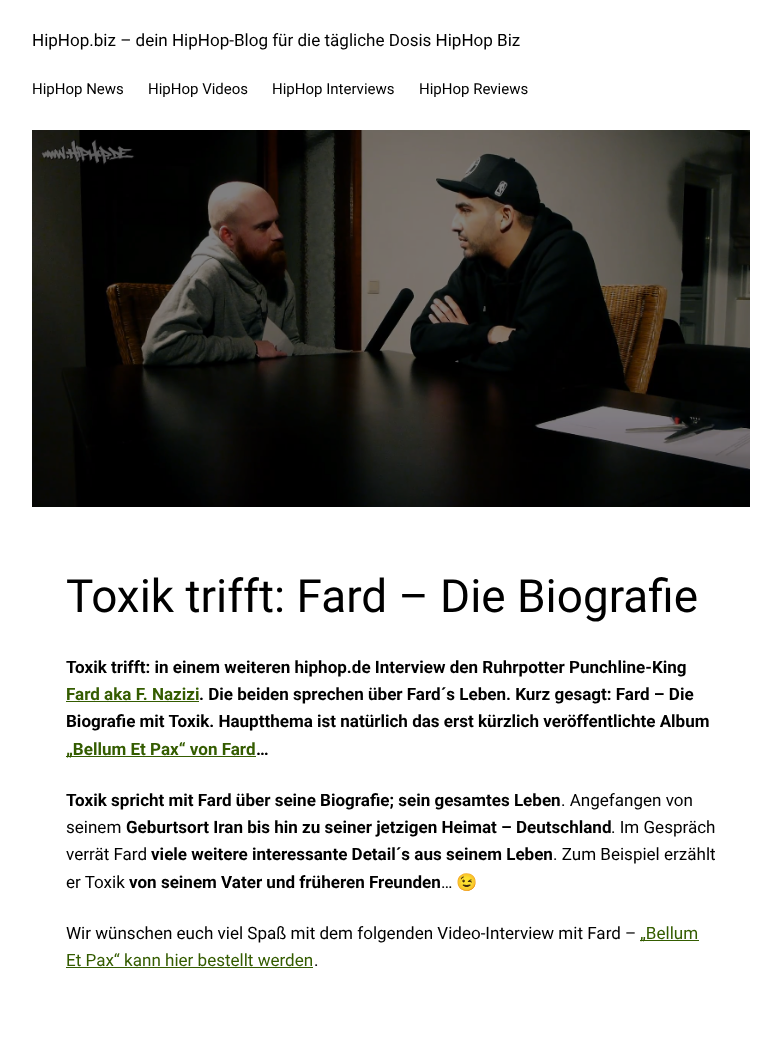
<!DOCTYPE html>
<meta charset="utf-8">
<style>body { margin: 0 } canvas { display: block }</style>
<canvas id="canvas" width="782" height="1039"></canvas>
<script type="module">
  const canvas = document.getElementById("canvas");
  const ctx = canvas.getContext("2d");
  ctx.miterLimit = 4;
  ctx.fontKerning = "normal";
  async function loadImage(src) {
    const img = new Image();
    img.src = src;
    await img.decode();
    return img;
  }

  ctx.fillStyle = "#ffffff";
  ctx.fillRect(0, 0, 782, 1039);
  ctx.font = "17.05px Roboto";
  ctx.fillStyle = "#000000";
  ctx.fillText("HipHop.biz – dein HipHop-Blog für die tägliche Dosis HipHop Biz", 32, 46);
  ctx.font = "15px Roboto";
  ctx.fillText("HipHop News", 32, 94);
  ctx.fillText("HipHop Videos", 148, 94);
  ctx.fillText("HipHop Interviews", 272, 94);
  ctx.fillText("HipHop Reviews", 419, 94);
  ctx.drawImage(await loadImage("img1.png"), 32, 130, 718, 377);
  ctx.font = "45.9px Roboto";
  ctx.fillText("Toxik trifft: Fard – Die Biografie", 66, 612);
  ctx.font = "bold 17.05px Roboto";
  ctx.fillText("Toxik trifft: in einem weiteren hiphop.de Interview den Ruhrpotter Punchline-King", 66, 673);
  ctx.fillStyle = "#345c00";
  ctx.fillText("Fard aka F. Nazizi", 66, 700);
  ctx.fillStyle = "#000000";
  ctx.fillText(". Die beiden sprechen über Fard´s Leben. Kurz gesagt: Fard – Die", 199, 700);
  ctx.fillStyle = "#345c00";
  ctx.fillRect(66, 701, 133, 1);
  ctx.fillStyle = "#000000";
  ctx.fillText("Biografie mit Toxik. Hauptthema ist natürlich das erst kürzlich veröffentlichte Album", 66, 727);
  ctx.fillStyle = "#345c00";
  ctx.fillRect(66, 756, 190, 1);
  ctx.fillText("„Bellum Et Pax“ von Fard", 66, 755);
  ctx.fillStyle = "#000000";
  ctx.fillText("…", 256, 755);
  ctx.fillText("Toxik spricht mit Fard über seine Biografie; sein gesamtes Leben", 66, 806);
  ctx.font = "17.05px Roboto";
  ctx.fillText(". Angefangen von", 561, 806);
  ctx.fillText("seinem", 66, 833);
  ctx.font = "bold 17.05px Roboto";
  ctx.fillText("Geburtsort Iran bis hin zu seiner jetzigen Heimat – Deutschland", 126, 833);
  ctx.font = "17.05px Roboto";
  ctx.fillText(". Im Gespräch", 611, 833);
  ctx.fillText("verrät Fard", 66, 860);
  ctx.font = "bold 17.05px Roboto";
  ctx.fillText("viele weitere interessante Detail´s aus seinem Leben", 151, 860);
  ctx.font = "17.05px Roboto";
  ctx.fillText(". Zum Beispiel erzählt", 553, 860);
  ctx.fillText("er Toxik", 66, 888);
  ctx.font = "bold 17.05px Roboto";
  ctx.fillText("von seinem Vater und früheren Freunden", 129, 888);
  ctx.font = "17.05px Roboto";
  ctx.fillText("…", 441, 888);
  ctx.font = "17.05px Noto Color Emoji";
  ctx.fillText("😉", 456, 888);
  ctx.font = "17.05px Roboto";
  ctx.fillText("Wir wünschen euch viel Spaß mit dem folgenden Video-Interview mit Fard –", 66, 939);
  ctx.fillStyle = "#345c00";
  ctx.fillRect(640, 940, 59, 1);
  ctx.fillText("„Bellum", 640, 939);
  ctx.fillText("Et Pax“ kann hier bestellt werden", 66, 966);
  ctx.fillRect(66, 967, 247, 1);
  ctx.fillStyle = "#000000";
  ctx.fillText(".", 314, 966);
</script>
